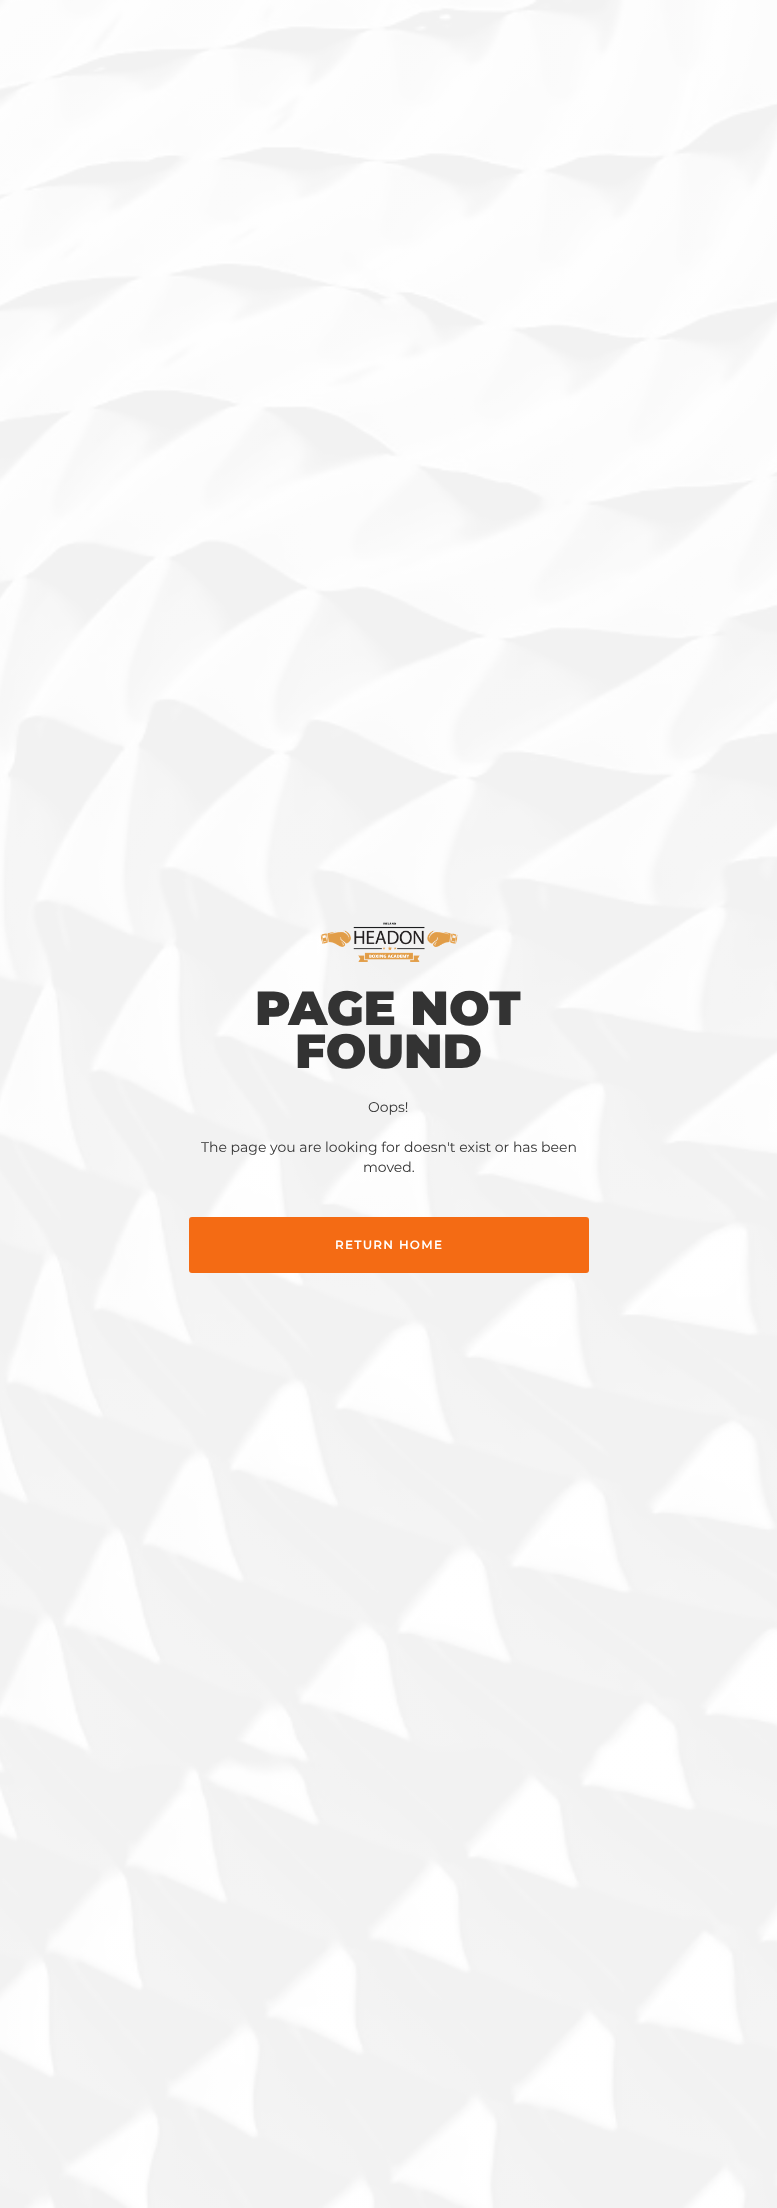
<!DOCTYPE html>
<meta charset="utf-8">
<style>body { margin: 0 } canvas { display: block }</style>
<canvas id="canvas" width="777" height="2208"></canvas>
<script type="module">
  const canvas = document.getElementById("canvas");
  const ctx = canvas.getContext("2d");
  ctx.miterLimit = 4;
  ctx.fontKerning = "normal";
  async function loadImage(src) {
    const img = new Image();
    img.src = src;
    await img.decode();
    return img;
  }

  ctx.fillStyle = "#ffffff";
  ctx.fillRect(0, 0, 777, 2208);
  ctx.drawImage(await loadImage("img1.png"), 0, 0, 777, 2208);
  ctx.drawImage(await loadImage("img2.png"), 320, 922, 138, 40);
  ctx.font = "900 48px Montserrat";
  ctx.fillStyle = "#333333";
  ctx.fillText("PAGE NOT", 255, 1025);
  ctx.fillText("FOUND", 295, 1068);
  ctx.font = "14px Montserrat";
  ctx.fillText("Oops!", 368, 1112);
  ctx.fillText("The page you are looking for doesn't exist or has been", 201, 1152);
  ctx.fillText("moved.", 363, 1172);
  ctx.fillStyle = "#f46b14";
  ctx.beginPath();
  ctx.roundRect(190, 1218, 398, 54, 2);
  ctx.fill();
  ctx.strokeStyle = "#f46b14";
  ctx.lineWidth = 2;
  ctx.stroke();
  ctx.letterSpacing = "1.25px";
  ctx.font = "600 12px Montserrat";
  ctx.fillStyle = "#ffffff";
  ctx.fillText("RETURN HOME", 335, 1249);
</script>
